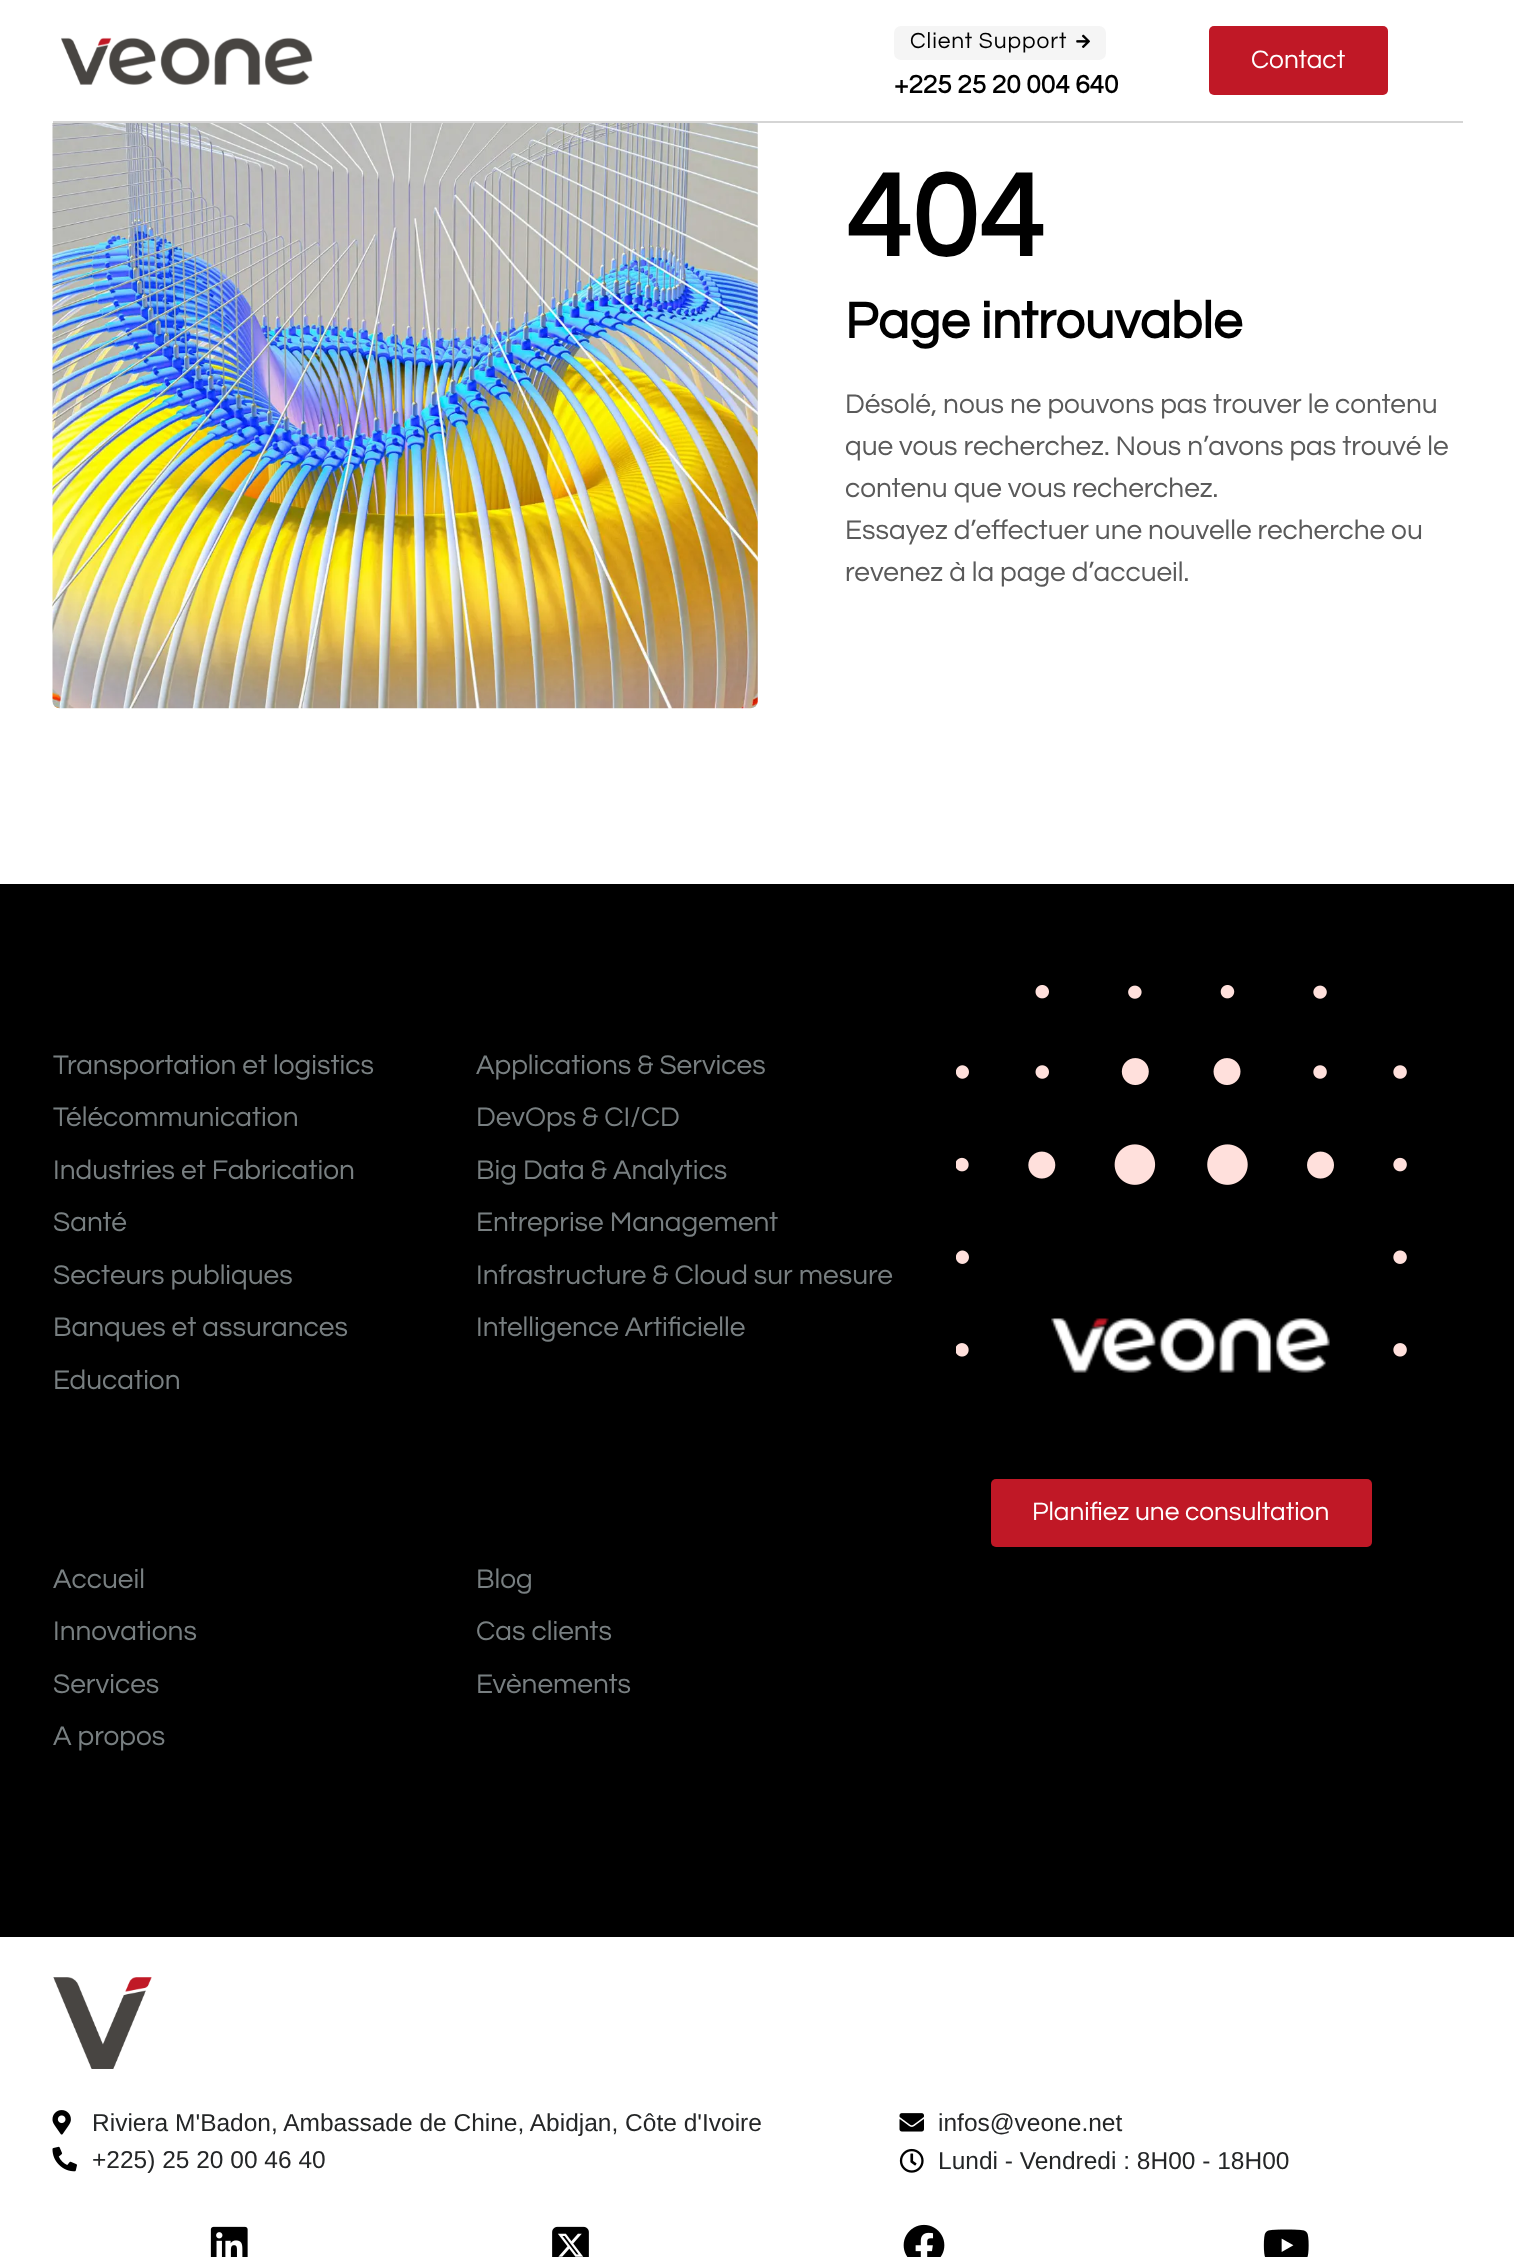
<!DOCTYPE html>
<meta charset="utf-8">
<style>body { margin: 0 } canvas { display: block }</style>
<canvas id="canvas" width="1514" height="2257"></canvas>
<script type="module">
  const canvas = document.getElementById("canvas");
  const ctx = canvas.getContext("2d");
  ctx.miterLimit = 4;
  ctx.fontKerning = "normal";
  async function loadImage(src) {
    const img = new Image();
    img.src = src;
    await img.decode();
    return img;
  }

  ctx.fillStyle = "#ffffff";
  ctx.fillRect(0, 0, 1514, 2257);
  ctx.fillStyle = "#f5f5f5";
  ctx.beginPath();
  ctx.roundRect(894, 26, 212, 34, 7);
  ctx.fill();
  ctx.letterSpacing = "0.9px";
  ctx.font = "22.75px Questrial";
  ctx.fillStyle = "#000000";
  ctx.fillText("Client Support", 910, 48);
  ctx.drawImage(await loadImage("img1.png"), 1076, 34, 14, 14);
  ctx.letterSpacing = "0px";
  ctx.font = "bold 26.25px Questrial";
  ctx.fillText("+225 25 20 004 640", 894, 93);
  ctx.fillStyle = "#c01826";
  ctx.beginPath();
  ctx.roundRect(1209, 26, 179, 69, 5);
  ctx.fill();
  ctx.font = "26.25px Questrial";
  ctx.fillStyle = "#ffffff";
  ctx.fillText("Contact", 1251, 68);
  ctx.fillStyle = "#d5d5d5";
  ctx.fillRect(53, 121, 1410, 2);
  ctx.drawImage(await loadImage("img2.png"), 61, 37, 252, 48);
  ctx.drawImage(await loadImage("img3.png"), 52, 123, 706, 586);
  ctx.font = "bold 121px Questrial";
  ctx.fillStyle = "#000000";
  ctx.fillText("404", 845, 256);
  ctx.font = "bold 52.5px Questrial";
  ctx.fillText("Page introuvable", 845, 338);
  ctx.font = "28px Questrial";
  ctx.fillStyle = "#5a5a5a";
  ctx.fillText("Désolé, nous ne pouvons pas trouver le contenu", 845, 413);
  ctx.fillText("que vous recherchez. Nous n’avons pas trouvé le", 845, 455);
  ctx.fillText("contenu que vous recherchez.", 845, 497);
  ctx.fillText("Essayez d’effectuer une nouvelle recherche ou", 845, 539);
  ctx.fillText("revenez à la page d’accueil.", 845, 581);
  ctx.fillStyle = "#000000";
  ctx.fillRect(0, 884, 1514, 1053);
  ctx.fillStyle = "#787f81";
  ctx.fillText("Transportation et logistics", 53, 1074);
  ctx.fillText("Télécommunication", 53, 1126);
  ctx.fillText("Industries et Fabrication", 53, 1179);
  ctx.fillText("Santé", 53, 1231);
  ctx.fillText("Secteurs publiques", 53, 1284);
  ctx.fillText("Banques et assurances", 53, 1336);
  ctx.fillText("Education", 53, 1389);
  ctx.fillText("Applications & Services", 476, 1074);
  ctx.fillText("DevOps & CI/CD", 476, 1126);
  ctx.fillText("Big Data & Analytics", 476, 1179);
  ctx.fillText("Entreprise Management", 476, 1231);
  ctx.fillText("Infrastructure & Cloud sur mesure", 476, 1284);
  ctx.fillText("Intelligence Artificielle", 476, 1336);
  ctx.fillText("Accueil", 53, 1588);
  ctx.fillText("Innovations", 53, 1640);
  ctx.fillText("Services", 53, 1693);
  ctx.fillText("A propos", 53, 1745);
  ctx.fillText("Blog", 476, 1588);
  ctx.fillText("Cas clients", 476, 1640);
  ctx.fillText("Evènements", 476, 1693);
  ctx.drawImage(await loadImage("img4.png"), 956, 985, 451, 372);
  ctx.fillStyle = "#000000";
  ctx.fillRect(1028, 1237, 306, 120);
  ctx.drawImage(await loadImage("img5.png"), 1051, 1318, 279, 55);
  ctx.fillStyle = "#c01826";
  ctx.beginPath();
  ctx.roundRect(991, 1479, 381, 68, 5);
  ctx.fill();
  ctx.font = "26.25px Questrial";
  ctx.fillStyle = "#ffffff";
  ctx.fillText("Planifiez une consultation", 1032, 1520);
  ctx.drawImage(await loadImage("img6.png"), 53, 1977, 99, 92);
  ctx.drawImage(await loadImage("img7.png"), 52, 2110, 19, 25);
  ctx.font = "24.5px Liberation Sans";
  ctx.fillStyle = "#242627";
  ctx.fillText("Riviera M'Badon, Ambassade de Chine, Abidjan, Côte d'Ivoire", 92, 2131);
  ctx.drawImage(await loadImage("img8.png"), 52, 2146, 25, 26);
  ctx.fillText("+225) 25 20 00 46 40", 92, 2168);
  ctx.drawImage(await loadImage("img9.png"), 899, 2113, 25, 19);
  ctx.fillText("infos@veone.net", 938, 2131);
  ctx.drawImage(await loadImage("img10.png"), 899, 2148, 25, 25);
  ctx.fillText("Lundi - Vendredi : 8H00 - 18H00", 938, 2169);
  ctx.drawImage(await loadImage("img11.png"), 210, 2226, 38, 31);
  ctx.drawImage(await loadImage("img12.png"), 552, 2226, 37, 31);
  ctx.drawImage(await loadImage("img13.png"), 903, 2224, 42, 33);
  ctx.drawImage(await loadImage("img14.png"), 1263, 2229, 46, 28);
</script>
